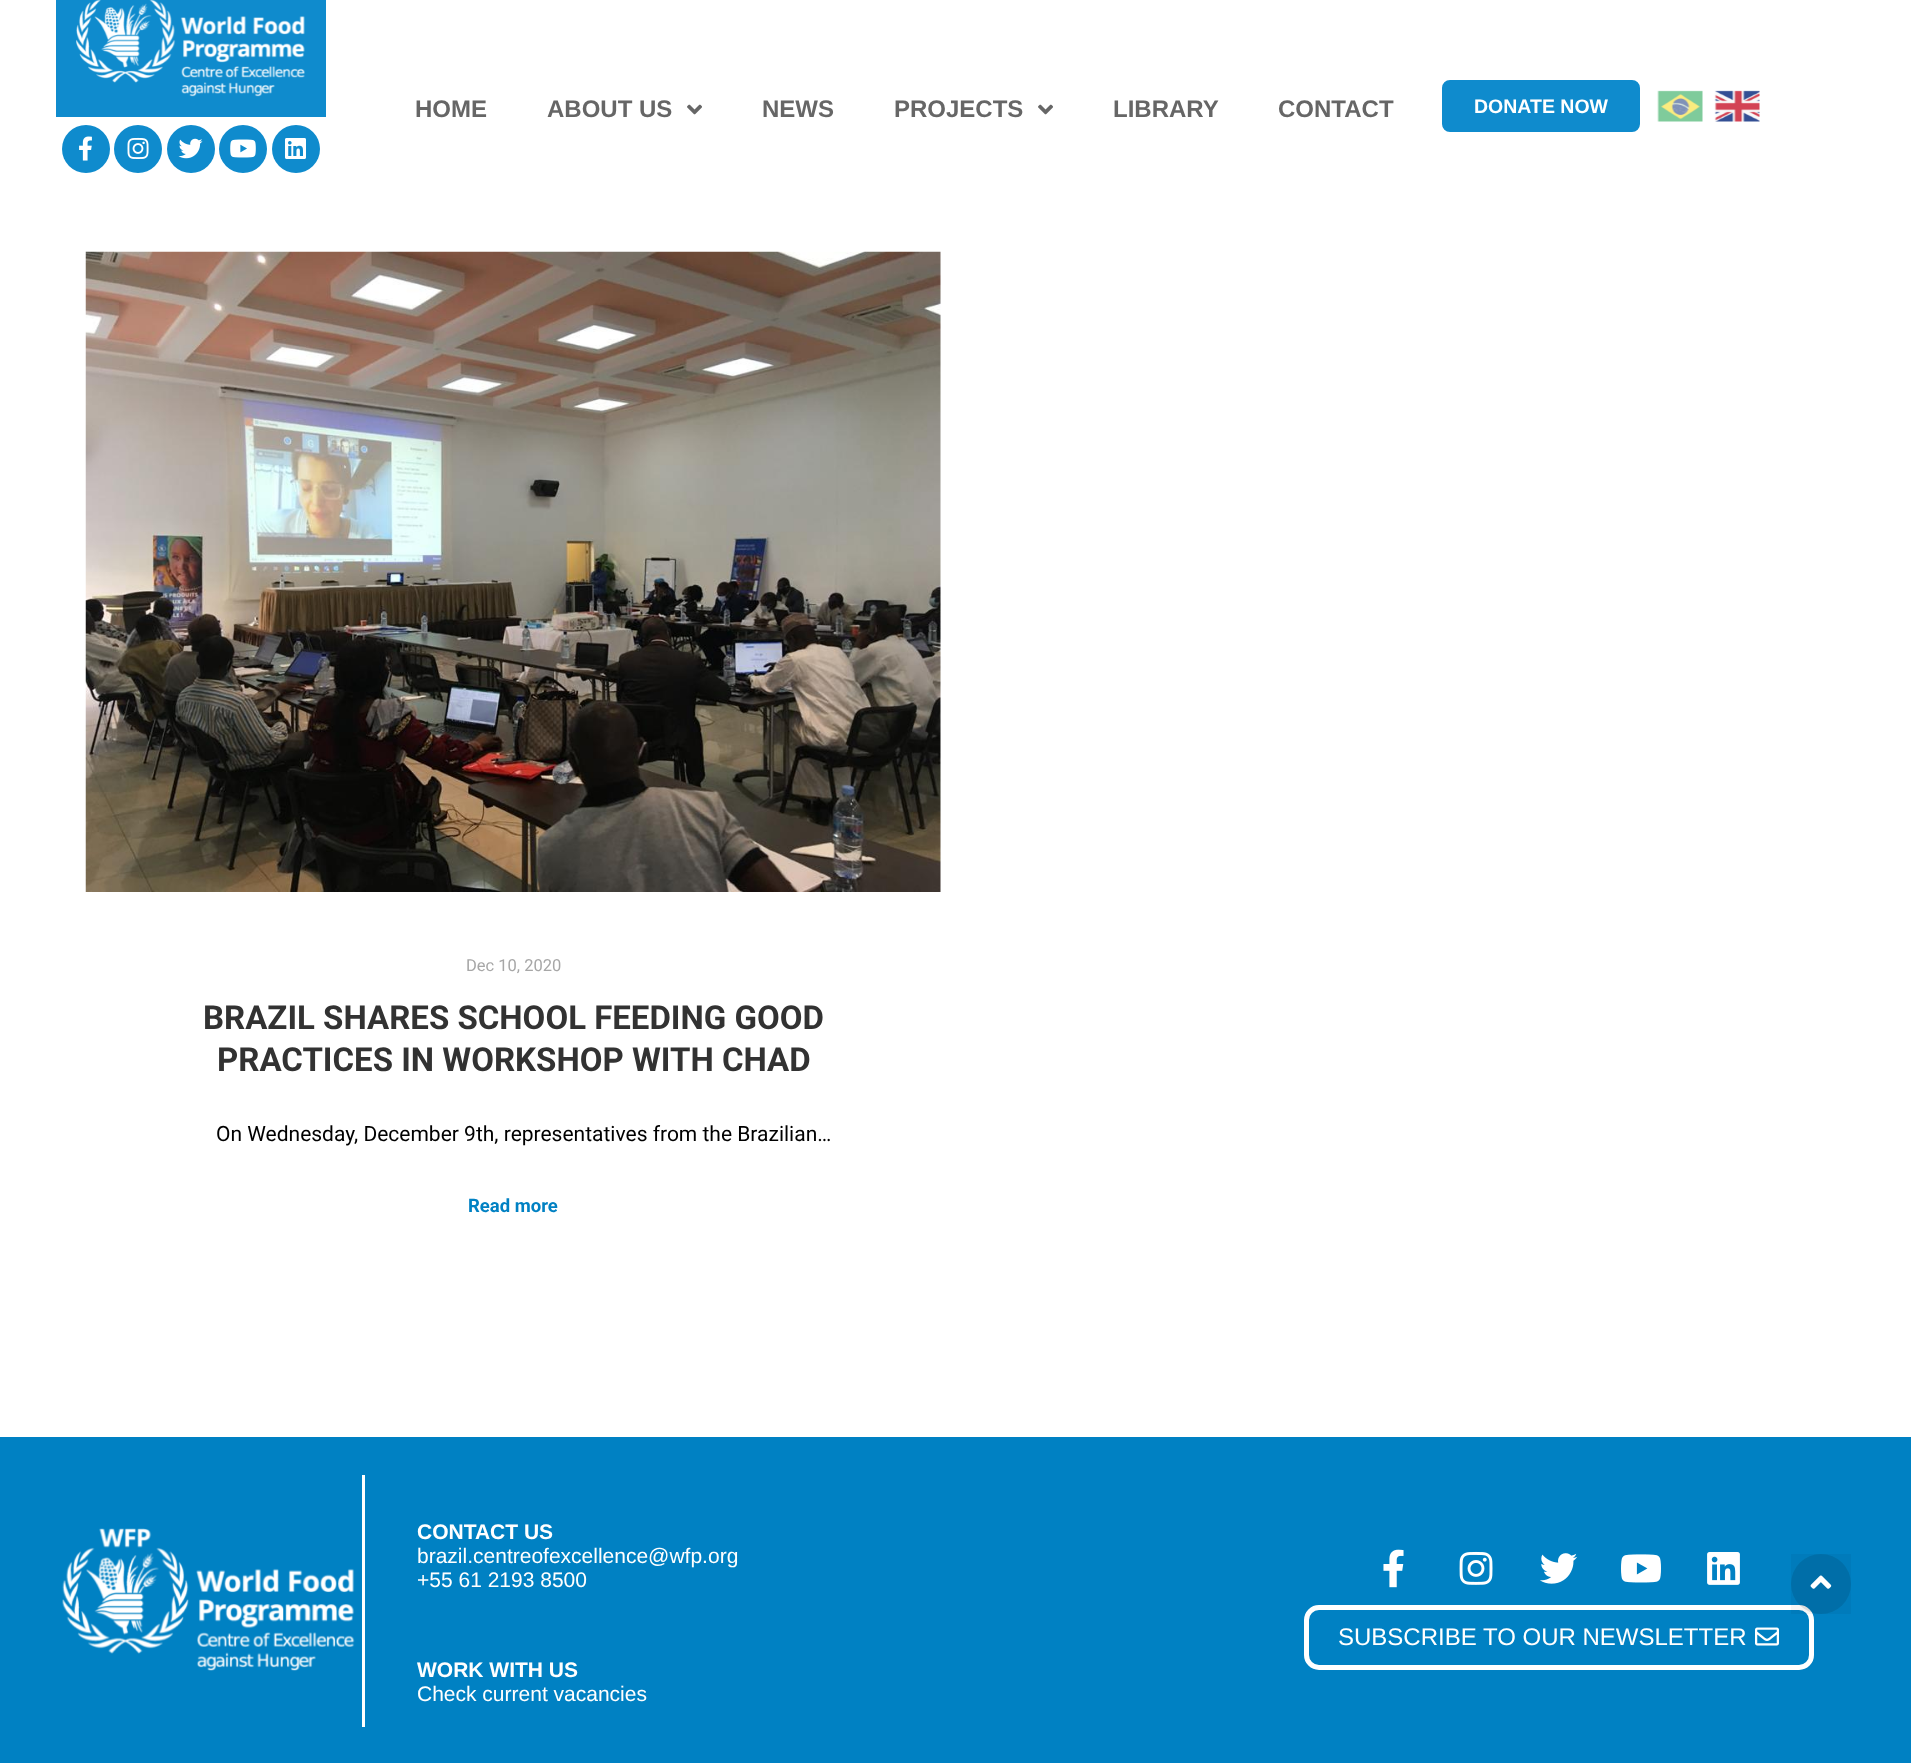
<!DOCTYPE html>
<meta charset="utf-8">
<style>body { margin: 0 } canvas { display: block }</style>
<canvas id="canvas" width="1911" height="1763"></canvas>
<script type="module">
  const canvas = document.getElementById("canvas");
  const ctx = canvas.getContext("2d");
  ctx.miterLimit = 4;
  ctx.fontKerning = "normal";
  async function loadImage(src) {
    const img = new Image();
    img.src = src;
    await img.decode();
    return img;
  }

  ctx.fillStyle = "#ffffff";
  ctx.fillRect(0, 0, 1911, 1763);
  ctx.fillStyle = "#0f8bcd";
  ctx.fillRect(56, 0, 270, 117);
  ctx.drawImage(await loadImage("img1.png"), 76, 0, 229, 97);
  ctx.beginPath();
  ctx.arc(86, 149, 24, 0, Math.PI * 2);
  ctx.fill();
  ctx.drawImage(await loadImage("img2.png"), 79, 136, 13, 25);
  ctx.beginPath();
  ctx.arc(138, 149, 24, 0, Math.PI * 2);
  ctx.fill();
  ctx.drawImage(await loadImage("img3.png"), 127, 137, 22, 22);
  ctx.beginPath();
  ctx.arc(191, 149, 24, 0, Math.PI * 2);
  ctx.fill();
  ctx.drawImage(await loadImage("img4.png"), 178, 138, 25, 21);
  ctx.beginPath();
  ctx.arc(243, 149, 24, 0, Math.PI * 2);
  ctx.fill();
  ctx.drawImage(await loadImage("img5.png"), 230, 139, 26, 19);
  ctx.beginPath();
  ctx.arc(296, 149, 24, 0, Math.PI * 2);
  ctx.fill();
  ctx.drawImage(await loadImage("img6.png"), 285, 138, 21, 21);
  ctx.font = "bold 24px Liberation Sans";
  ctx.fillStyle = "#666666";
  ctx.fillText("HOME", 415, 117);
  ctx.fillText("ABOUT US", 547, 117);
  ctx.drawImage(await loadImage("img7.png"), 687, 104, 15, 11);
  ctx.fillText("NEWS", 762, 117);
  ctx.fillText("PROJECTS", 894, 117);
  ctx.drawImage(await loadImage("img7.png"), 1038, 104, 15, 11);
  ctx.fillText("LIBRARY", 1113, 117);
  ctx.fillText("CONTACT", 1278, 117);
  ctx.fillStyle = "#0f8bcd";
  ctx.beginPath();
  ctx.roundRect(1443, 81, 196, 50, 7);
  ctx.fill();
  ctx.strokeStyle = "#0f8bcd";
  ctx.lineWidth = 2;
  ctx.stroke();
  ctx.font = "bold 19.5px Liberation Sans";
  ctx.fillStyle = "#ffffff";
  ctx.fillText("DONATE NOW", 1474, 113);
  ctx.drawImage(await loadImage("img8.png"), 1657, 90, 46, 32);
  ctx.drawImage(await loadImage("img9.png"), 1714, 90, 46, 32);
  ctx.drawImage(await loadImage("img10.png"), 85, 251, 856, 641);
  ctx.font = "16.5px Roboto";
  ctx.fillStyle = "#a7a7a7";
  ctx.fillText("Dec 10, 2020", 466, 971);
  ctx.font = "bold 33px Roboto";
  ctx.fillStyle = "#323232";
  ctx.fillText("BRAZIL SHARES SCHOOL FEEDING GOOD", 203, 1029);
  ctx.fillText("PRACTICES IN WORKSHOP WITH CHAD", 217, 1071);
  ctx.font = "21px Roboto";
  ctx.fillStyle = "#000000";
  ctx.fillText("On Wednesday, December 9th, representatives from the Brazilian…", 216, 1141);
  ctx.font = "bold 18.5px Roboto";
  ctx.fillStyle = "#0081c3";
  ctx.fillText("Read more", 468, 1212);
  ctx.fillRect(0, 1437, 1911, 326);
  ctx.drawImage(await loadImage("img11.png"), 62, 1528, 293, 143);
  ctx.fillStyle = "#ffffff";
  ctx.fillRect(362, 1475, 3, 252);
  ctx.font = "bold 21px Liberation Sans";
  ctx.fillText("CONTACT US", 417, 1539);
  ctx.font = "21px Liberation Sans";
  ctx.fillText("brazil.centreofexcellence@wfp.org", 417, 1563);
  ctx.fillText("+55 61 2193 8500", 417, 1587);
  ctx.font = "bold 21px Liberation Sans";
  ctx.fillText("WORK WITH US", 417, 1677);
  ctx.font = "21px Liberation Sans";
  ctx.fillText("Check current vacancies", 417, 1701);
  ctx.drawImage(await loadImage("img12.png"), 1383, 1549, 21, 39);
  ctx.drawImage(await loadImage("img13.png"), 1459, 1551, 34, 34);
  ctx.drawImage(await loadImage("img14.png"), 1540, 1553, 38, 31);
  ctx.drawImage(await loadImage("img15.png"), 1621, 1554, 40, 29);
  ctx.drawImage(await loadImage("img16.png"), 1707, 1552, 33, 33);
  ctx.beginPath();
  ctx.roundRect(1306.5, 1607.5, 505, 60, 12.5);
  ctx.strokeStyle = "#ffffff";
  ctx.lineWidth = 5;
  ctx.stroke();
  ctx.font = "24px Liberation Sans";
  ctx.fillText("SUBSCRIBE TO OUR NEWSLETTER", 1338, 1645);
  ctx.drawImage(await loadImage("img17.png"), 1755, 1627, 24, 19);
  ctx.fillStyle = "rgba(0, 0, 0, 0.1)";
  ctx.beginPath();
  ctx.arc(1821, 1584, 30, 0, Math.PI * 2);
  ctx.fill();
  ctx.fillStyle = "rgba(0, 0, 0, 0.04)";
  ctx.fillRect(1791, 1554, 60, 60);
  ctx.drawImage(await loadImage("img18.png"), 1810, 1575, 22, 14);
</script>
